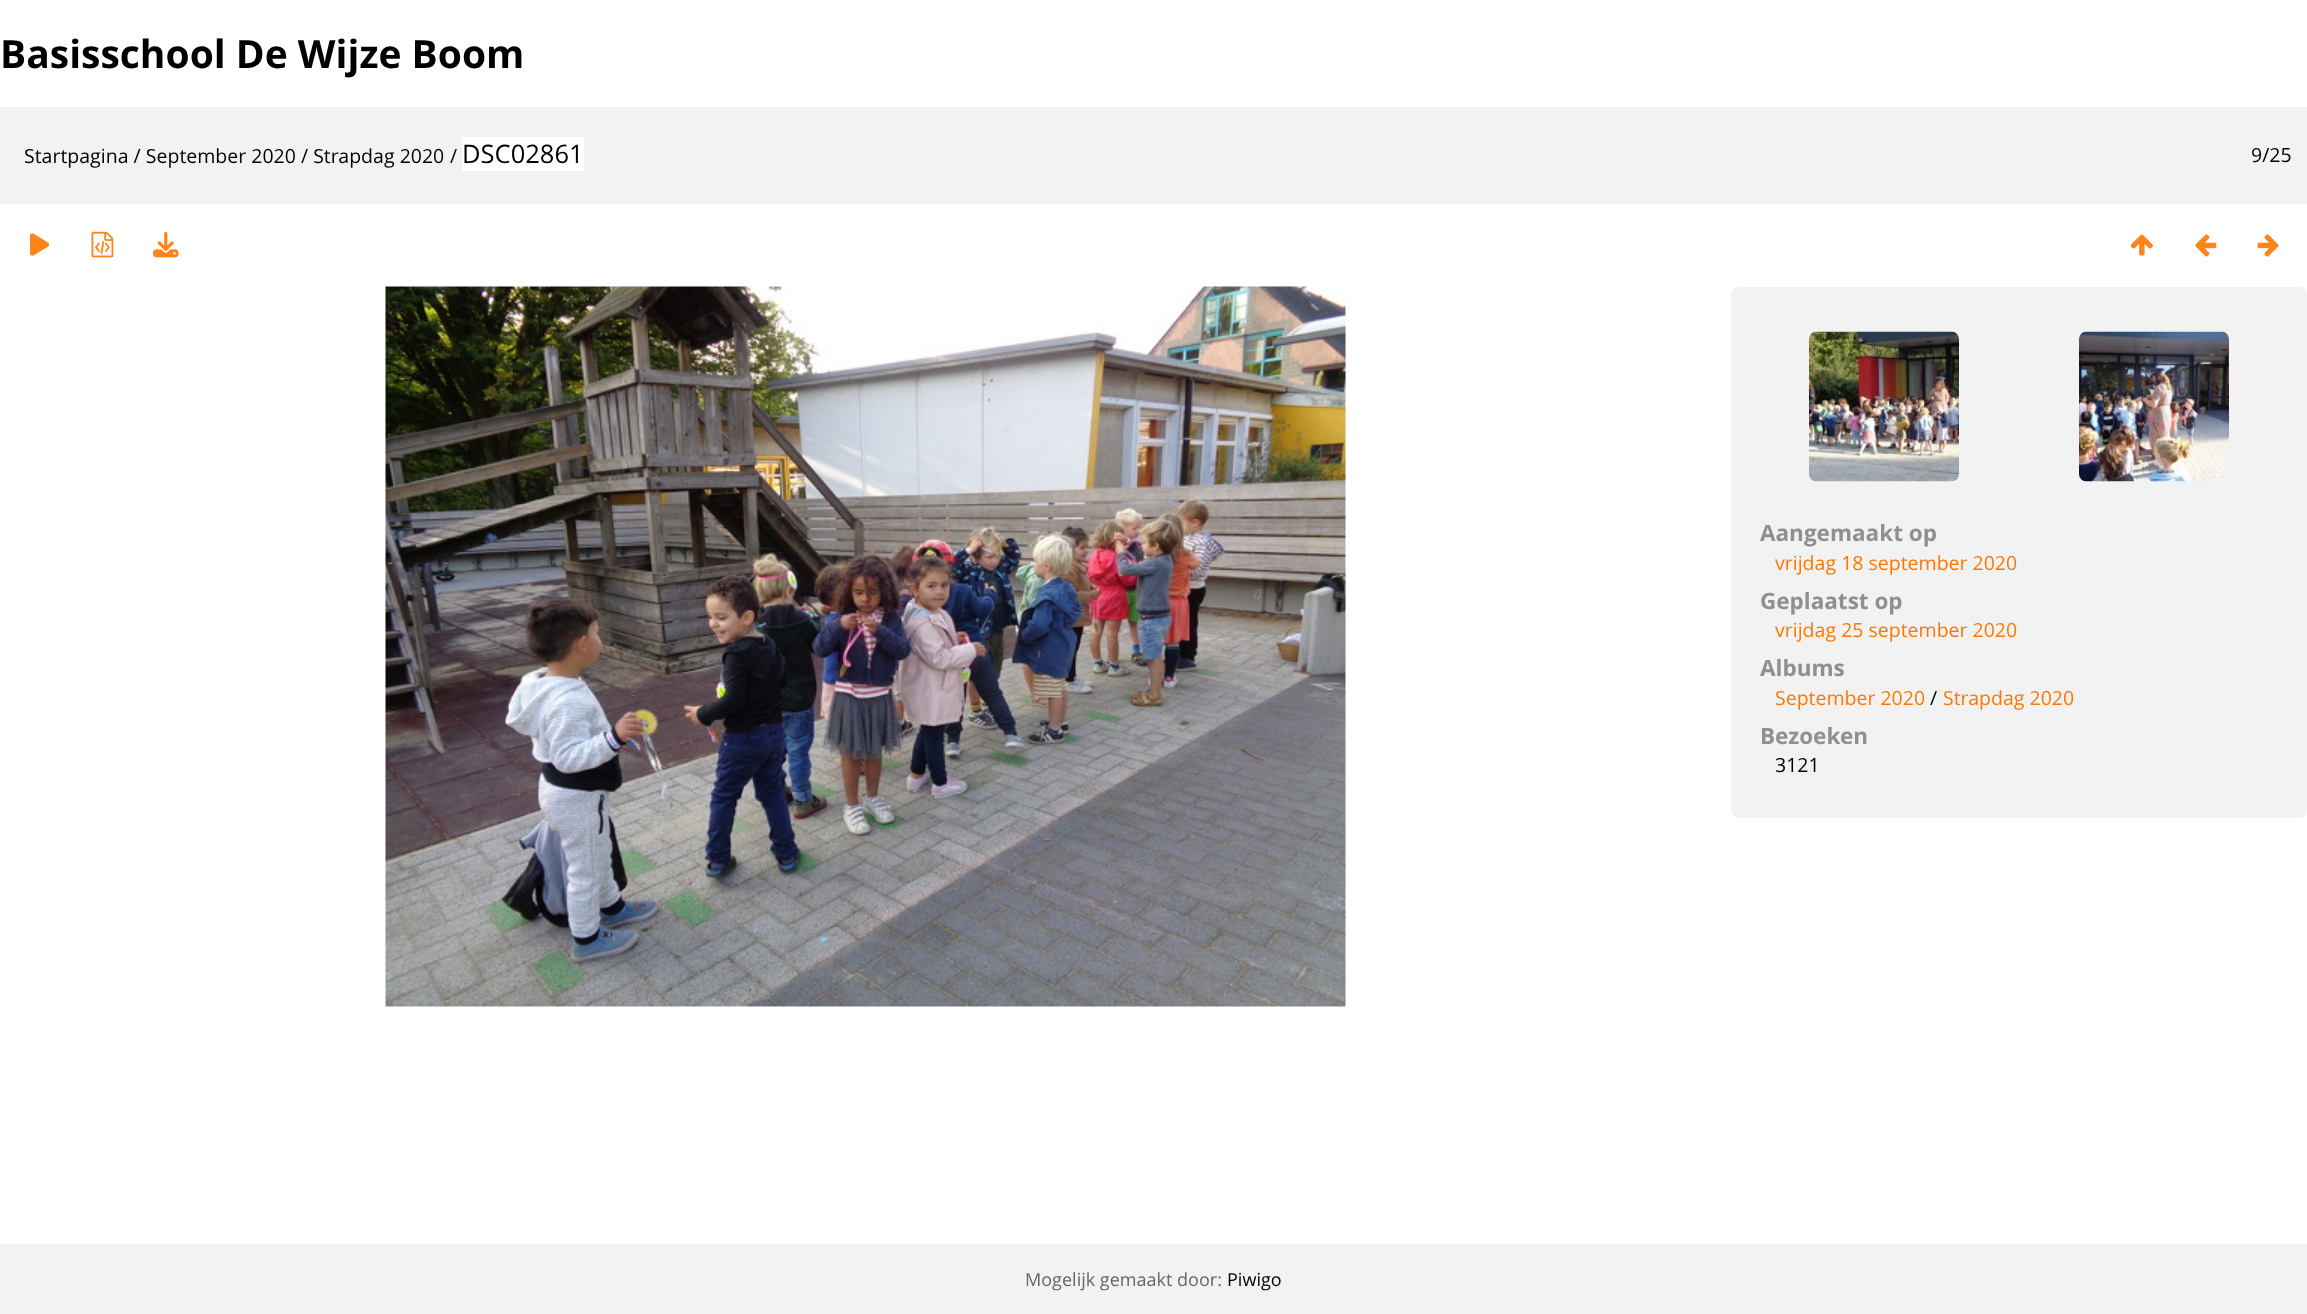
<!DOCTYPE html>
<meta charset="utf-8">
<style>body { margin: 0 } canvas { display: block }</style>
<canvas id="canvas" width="2307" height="1314"></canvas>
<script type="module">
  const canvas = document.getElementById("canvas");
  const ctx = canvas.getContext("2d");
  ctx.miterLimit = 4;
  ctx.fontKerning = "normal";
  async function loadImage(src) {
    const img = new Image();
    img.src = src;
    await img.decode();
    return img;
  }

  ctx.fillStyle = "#ffffff";
  ctx.fillRect(0, 0, 2307, 1314);
  ctx.font = "bold 39px Open Sans";
  ctx.fillStyle = "#000000";
  ctx.fillText("Basisschool De Wijze Boom", 0, 68);
  ctx.fillStyle = "#f2f2f2";
  ctx.fillRect(0, 107, 2307, 97);
  ctx.font = "19.5px Open Sans";
  ctx.fillStyle = "#000000";
  ctx.fillText("Startpagina / September 2020 / Strapdag 2020", 24, 163);
  ctx.fillText("/", 450, 163);
  ctx.fillStyle = "#ffffff";
  ctx.fillRect(462, 137, 122, 34);
  ctx.font = "25.5px Open Sans";
  ctx.fillStyle = "#000000";
  ctx.fillText("DSC02861", 462, 163);
  ctx.font = "19.5px Open Sans";
  ctx.fillText("9/25", 2251, 162);
  ctx.drawImage(await loadImage("img1.png"), 30, 233, 20, 23);
  ctx.drawImage(await loadImage("img2.png"), 91, 231, 23, 27);
  ctx.drawImage(await loadImage("img3.png"), 153, 231, 26, 27);
  ctx.drawImage(await loadImage("img4.png"), 2130, 234, 23, 22);
  ctx.drawImage(await loadImage("img5.png"), 2195, 234, 22, 23);
  ctx.drawImage(await loadImage("img6.png"), 2257, 234, 22, 23);
  ctx.drawImage(await loadImage("img7.png"), 385, 286, 961, 721);
  ctx.fillStyle = "#f2f2f2";
  ctx.beginPath();
  ctx.roundRect(1731, 287, 576, 531, 8);
  ctx.fill();
  ctx.drawImage(await loadImage("img8.png"), 1809, 331, 150, 151);
  ctx.drawImage(await loadImage("img9.png"), 2079, 331, 150, 151);
  ctx.font = "bold 22.5px Open Sans";
  ctx.fillStyle = "#8e8e93";
  ctx.fillText("Aangemaakt op", 1760, 541);
  ctx.font = "19.5px Open Sans";
  ctx.fillStyle = "#ff7700";
  ctx.fillText("vrijdag 18 september 2020", 1775, 570);
  ctx.font = "bold 22.5px Open Sans";
  ctx.fillStyle = "#8e8e93";
  ctx.fillText("Geplaatst op", 1760, 609);
  ctx.font = "19.5px Open Sans";
  ctx.fillStyle = "#ff7700";
  ctx.fillText("vrijdag 25 september 2020", 1775, 637);
  ctx.font = "bold 22.5px Open Sans";
  ctx.fillStyle = "#8e8e93";
  ctx.fillText("Albums", 1760, 676);
  ctx.font = "19.5px Open Sans";
  ctx.fillStyle = "#ff7700";
  ctx.fillText("September 2020", 1775, 705);
  ctx.fillStyle = "#000000";
  ctx.fillText("/", 1930, 705);
  ctx.fillStyle = "#ff7700";
  ctx.fillText("Strapdag 2020", 1943, 705);
  ctx.font = "bold 22.5px Open Sans";
  ctx.fillStyle = "#8e8e93";
  ctx.fillText("Bezoeken", 1760, 744);
  ctx.font = "19.5px Open Sans";
  ctx.fillStyle = "#000000";
  ctx.fillText("3121", 1775, 772);
  ctx.fillStyle = "#f2f2f2";
  ctx.fillRect(0, 1244, 2307, 70);
  ctx.font = "18px Open Sans";
  ctx.fillStyle = "#666666";
  ctx.fillText("Mogelijk gemaakt door:", 1025, 1286);
  ctx.fillStyle = "#000000";
  ctx.fillText("Piwigo", 1227, 1286);
</script>
